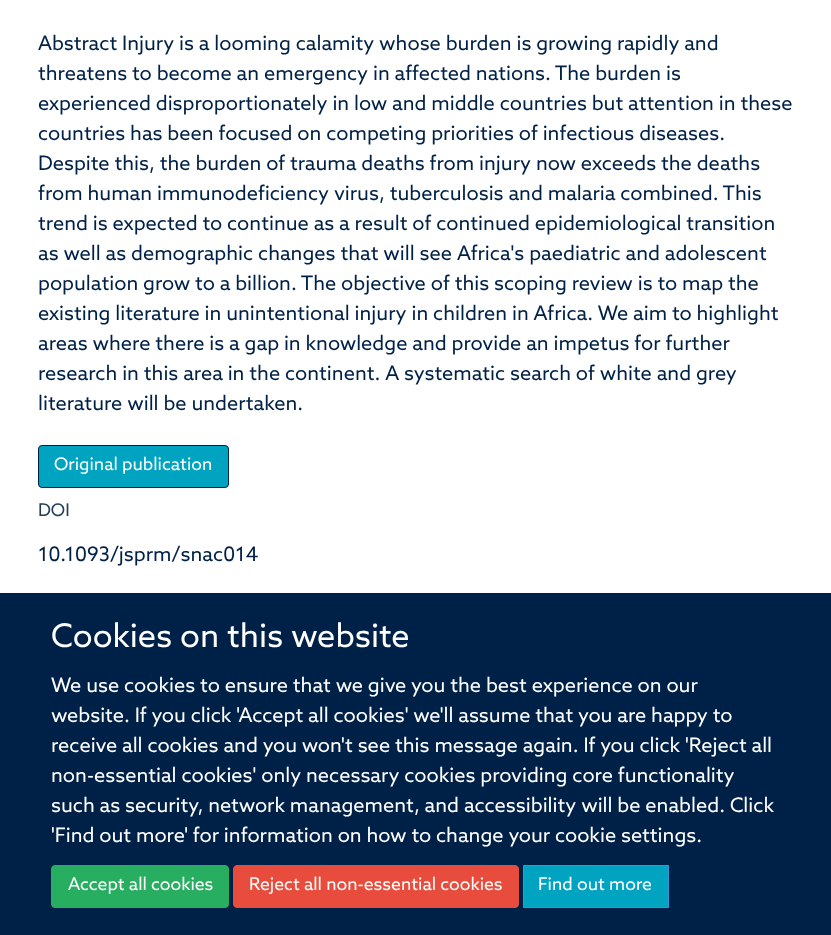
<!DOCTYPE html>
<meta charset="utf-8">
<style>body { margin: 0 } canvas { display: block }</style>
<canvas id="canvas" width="831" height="935"></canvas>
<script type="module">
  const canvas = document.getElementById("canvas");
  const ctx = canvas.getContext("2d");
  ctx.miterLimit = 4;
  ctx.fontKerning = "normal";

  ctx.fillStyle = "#ffffff";
  ctx.fillRect(0, 0, 831, 935);
  ctx.font = "20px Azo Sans";
  ctx.fillStyle = "#002147";
  ctx.fillText("Abstract Injury is a looming calamity whose burden is growing rapidly and", 38, 50);
  ctx.fillText("threatens to become an emergency in affected nations. The burden is", 38, 80);
  ctx.fillText("experienced disproportionately in low and middle countries but attention in these", 38, 110);
  ctx.fillText("countries has been focused on competing priorities of infectious diseases.", 38, 140);
  ctx.fillText("Despite this, the burden of trauma deaths from injury now exceeds the deaths", 38, 170);
  ctx.fillText("from human immunodeficiency virus, tuberculosis and malaria combined. This", 38, 200);
  ctx.fillText("trend is expected to continue as a result of continued epidemiological transition", 38, 230);
  ctx.fillText("as well as demographic changes that will see Africa's paediatric and adolescent", 38, 260);
  ctx.fillText("population grow to a billion. The objective of this scoping review is to map the", 38, 290);
  ctx.fillText("existing literature in unintentional injury in children in Africa. We aim to highlight", 38, 320);
  ctx.fillText("areas where there is a gap in knowledge and provide an impetus for further", 38, 350);
  ctx.fillText("research in this area in the continent. A systematic search of white and grey", 38, 380);
  ctx.fillText("literature will be undertaken.", 38, 410);
  ctx.fillStyle = "#00a3c0";
  ctx.beginPath();
  ctx.roundRect(38.5, 445.5, 190, 42, 3.5);
  ctx.fill();
  ctx.strokeStyle = "#002147";
  ctx.stroke();
  ctx.font = "17.5px Azo Sans";
  ctx.fillStyle = "#ffffff";
  ctx.fillText("Original publication", 54, 470);
  ctx.fillStyle = "#203e58";
  ctx.fillText("DOI", 38, 516);
  ctx.font = "20px Azo Sans";
  ctx.fillStyle = "#002147";
  ctx.fillText("10.1093/jsprm/snac014", 38, 561);
  ctx.fillRect(0, 593, 831, 342);
  ctx.font = "32.5px Azo Sans";
  ctx.fillStyle = "#ffffff";
  ctx.fillText("Cookies on this website", 51, 647);
  ctx.font = "20px Azo Sans";
  ctx.fillText("We use cookies to ensure that we give you the best experience on our", 51, 692);
  ctx.fillText("website. If you click 'Accept all cookies' we'll assume that you are happy to", 51, 722);
  ctx.fillText("receive all cookies and you won't see this message again. If you click 'Reject all", 51, 752);
  ctx.fillText("non-essential cookies' only necessary cookies providing core functionality", 51, 782);
  ctx.fillText("such as security, network management, and accessibility will be enabled. Click", 51, 812);
  ctx.fillText("'Find out more' for information on how to change your cookie settings.", 51, 842);
  ctx.fillStyle = "#27ae60";
  ctx.beginPath();
  ctx.roundRect(51.5, 865.5, 177, 42, 3.5);
  ctx.fill();
  ctx.strokeStyle = "#27ae60";
  ctx.stroke();
  ctx.font = "17.5px Azo Sans";
  ctx.fillStyle = "#ffffff";
  ctx.fillText("Accept all cookies", 68, 890);
  ctx.fillStyle = "#e74c3c";
  ctx.beginPath();
  ctx.roundRect(233.5, 865.5, 285, 42, 3.5);
  ctx.fill();
  ctx.strokeStyle = "#e74c3c";
  ctx.stroke();
  ctx.fillStyle = "#ffffff";
  ctx.fillText("Reject all non-essential cookies", 249, 890);
  ctx.fillStyle = "#00a3c0";
  ctx.beginPath();
  ctx.rect(523.5, 865.5, 145, 42);
  ctx.fill();
  ctx.strokeStyle = "#3498db";
  ctx.stroke();
  ctx.fillStyle = "#ffffff";
  ctx.fillText("Find out more", 538, 890);
</script>
